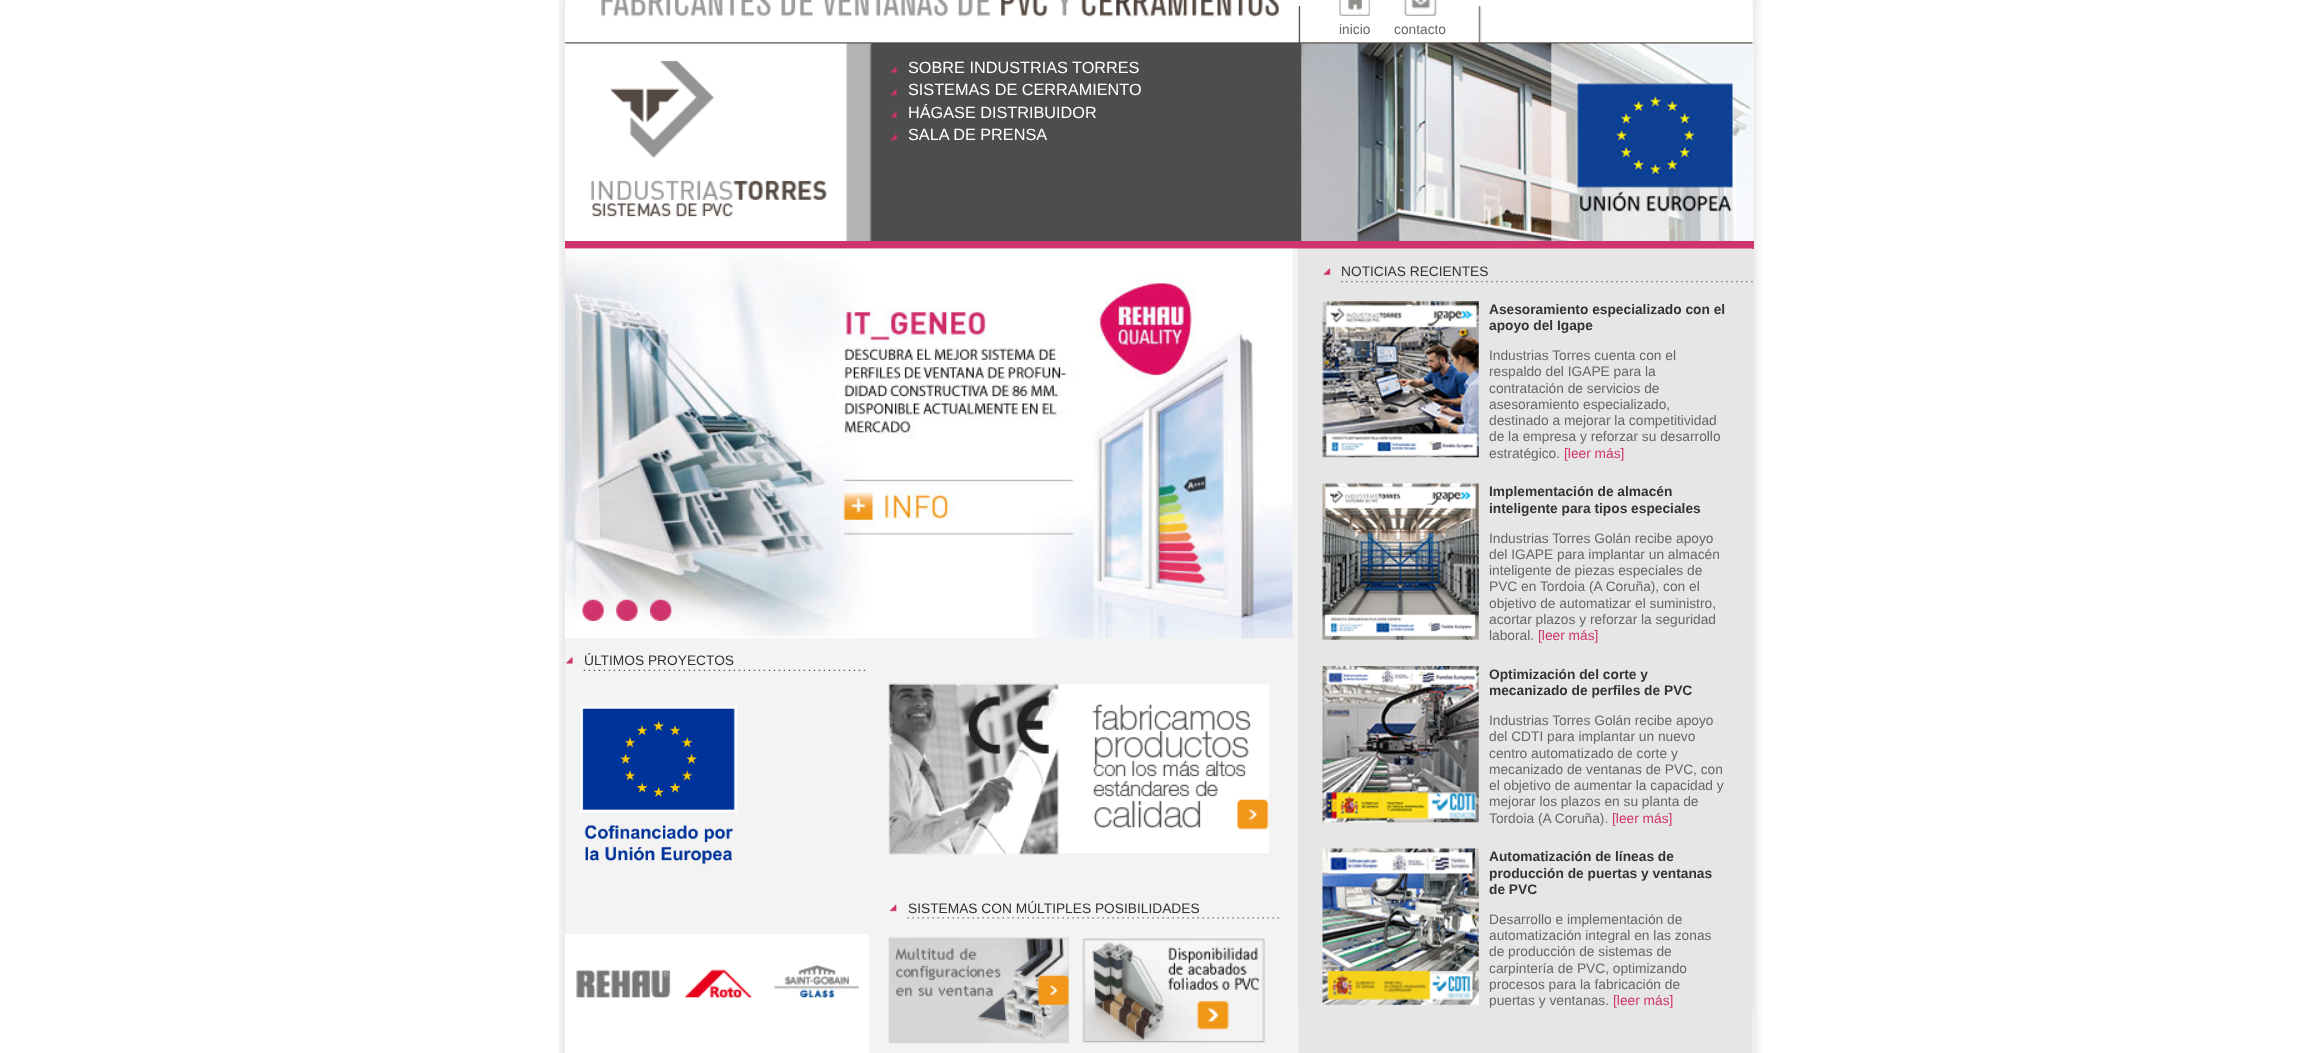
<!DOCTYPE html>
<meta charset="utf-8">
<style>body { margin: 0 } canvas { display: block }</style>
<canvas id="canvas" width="2320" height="1053"></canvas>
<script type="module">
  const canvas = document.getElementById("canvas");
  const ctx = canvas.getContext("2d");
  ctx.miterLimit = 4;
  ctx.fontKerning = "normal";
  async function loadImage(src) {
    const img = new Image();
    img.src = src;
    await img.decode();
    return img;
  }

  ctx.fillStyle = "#ffffff";
  ctx.fillRect(0, 0, 2320, 1053);
  ctx.drawImage(await loadImage("img1.png"), 558, 0, 1203, 1053);
  ctx.drawImage(await loadImage("img2.png"), 565, 6, 1188, 235);
  ctx.fillStyle = "#cf346c";
  ctx.fillRect(565, 241, 1189, 8);
  ctx.drawImage(await loadImage("img3.png"), 601, 0, 678, 17);
  ctx.drawImage(await loadImage("img4.png"), 1338, 0, 32, 16);
  ctx.drawImage(await loadImage("img5.png"), 1403, 0, 34, 16);
  ctx.font = "13.75px Liberation Sans";
  ctx.fillStyle = "#666666";
  ctx.fillText("inicio", 1339, 34);
  ctx.fillText("contacto", 1394, 34);
  ctx.drawImage(await loadImage("img6.png"), 591, 60, 236, 157);
  ctx.drawImage(await loadImage("img7.png"), 890, 66, 8, 8);
  ctx.font = "16.25px Liberation Sans";
  ctx.fillStyle = "#ffffff";
  ctx.fillText("SOBRE INDUSTRIAS TORRES", 908, 73);
  ctx.drawImage(await loadImage("img8.png"), 890, 88, 8, 8);
  ctx.fillText("SISTEMAS DE CERRAMIENTO", 908, 95);
  ctx.drawImage(await loadImage("img7.png"), 890, 111, 8, 8);
  ctx.fillText("HÁGASE DISTRIBUIDOR", 908, 118);
  ctx.drawImage(await loadImage("img8.png"), 890, 133, 8, 8);
  ctx.fillText("SALA DE PRENSA", 908, 140);
  ctx.drawImage(await loadImage("img9.png"), 1301, 43, 453, 198);
  ctx.drawImage(await loadImage("img10.png"), 565, 248, 1188, 805);
  ctx.drawImage(await loadImage("img11.png"), 565, 248, 728, 391);
  ctx.drawImage(await loadImage("img12.png"), 582, 599, 22, 22);
  ctx.drawImage(await loadImage("img13.png"), 616, 599, 22, 22);
  ctx.drawImage(await loadImage("img14.png"), 650, 599, 22, 22);
  ctx.drawImage(await loadImage("img15.png"), 566, 657, 300, 14);
  ctx.font = "13.75px Liberation Sans";
  ctx.fillStyle = "#333333";
  ctx.fillText("ÚLTIMOS PROYECTOS", 584, 665);
  ctx.drawImage(await loadImage("img16.png"), 580, 705, 157, 160);
  ctx.drawImage(await loadImage("img17.png"), 888, 683, 381, 172);
  ctx.drawImage(await loadImage("img18.png"), 889, 904, 390, 15);
  ctx.fillText("SISTEMAS CON MÚLTIPLES POSIBILIDADES", 908, 913);
  ctx.drawImage(await loadImage("img19.png"), 888, 937, 181, 107);
  ctx.drawImage(await loadImage("img20.png"), 1082, 938, 183, 105);
  ctx.fillStyle = "#e6e6e6";
  ctx.fillRect(1298, 249, 456, 760);
  ctx.drawImage(await loadImage("img21.png"), 1323, 268, 430, 15);
  ctx.fillStyle = "#333333";
  ctx.fillText("NOTICIAS RECIENTES", 1341, 276);
  ctx.drawImage(await loadImage("img22.png"), 1322, 301, 157, 157);
  ctx.font = "bold 13.75px Liberation Sans";
  ctx.fillText("Asesoramiento especializado con el", 1489, 314);
  ctx.fillText("apoyo del Igape", 1489, 330);
  ctx.font = "13.75px Liberation Sans";
  ctx.fillStyle = "#666666";
  ctx.fillText("Industrias Torres cuenta con el", 1489, 360);
  ctx.fillText("respaldo del IGAPE para la", 1489, 376);
  ctx.fillText("contratación de servicios de", 1489, 393);
  ctx.fillText("asesoramiento especializado,", 1489, 409);
  ctx.fillText("destinado a mejorar la competitividad", 1489, 425);
  ctx.fillText("de la empresa y reforzar su desarrollo", 1489, 441);
  ctx.fillText("estratégico.", 1489, 458);
  ctx.fillStyle = "#cf346c";
  ctx.fillText("[leer más]", 1564, 458);
  ctx.drawImage(await loadImage("img23.png"), 1322, 483, 157, 157);
  ctx.font = "bold 13.75px Liberation Sans";
  ctx.fillStyle = "#333333";
  ctx.fillText("Implementación de almacén", 1489, 496);
  ctx.fillText("inteligente para tipos especiales", 1489, 513);
  ctx.font = "13.75px Liberation Sans";
  ctx.fillStyle = "#666666";
  ctx.fillText("Industrias Torres Golán recibe apoyo", 1489, 543);
  ctx.fillText("del IGAPE para implantar un almacén", 1489, 559);
  ctx.fillText("inteligente de piezas especiales de", 1489, 575);
  ctx.fillText("PVC en Tordoia (A Coruña), con el", 1489, 591);
  ctx.fillText("objetivo de automatizar el suministro,", 1489, 608);
  ctx.fillText("acortar plazos y reforzar la seguridad", 1489, 624);
  ctx.fillText("laboral.", 1489, 640);
  ctx.fillStyle = "#cf346c";
  ctx.fillText("[leer más]", 1538, 640);
  ctx.drawImage(await loadImage("img24.png"), 1322, 666, 157, 157);
  ctx.font = "bold 13.75px Liberation Sans";
  ctx.fillStyle = "#333333";
  ctx.fillText("Optimización del corte y", 1489, 679);
  ctx.fillText("mecanizado de perfiles de PVC", 1489, 695);
  ctx.font = "13.75px Liberation Sans";
  ctx.fillStyle = "#666666";
  ctx.fillText("Industrias Torres Golán recibe apoyo", 1489, 725);
  ctx.fillText("del CDTI para implantar un nuevo", 1489, 741);
  ctx.fillText("centro automatizado de corte y", 1489, 758);
  ctx.fillText("mecanizado de ventanas de PVC, con", 1489, 774);
  ctx.fillText("el objetivo de aumentar la capacidad y", 1489, 790);
  ctx.fillText("mejorar los plazos en su planta de", 1489, 806);
  ctx.fillText("Tordoia (A Coruña).", 1489, 823);
  ctx.fillStyle = "#cf346c";
  ctx.fillText("[leer más]", 1612, 823);
  ctx.drawImage(await loadImage("img25.png"), 1322, 848, 157, 157);
  ctx.font = "bold 13.75px Liberation Sans";
  ctx.fillStyle = "#333333";
  ctx.fillText("Automatización de líneas de", 1489, 861);
  ctx.fillText("producción de puertas y ventanas", 1489, 878);
  ctx.fillText("de PVC", 1489, 894);
  ctx.font = "13.75px Liberation Sans";
  ctx.fillStyle = "#666666";
  ctx.fillText("Desarrollo e implementación de", 1489, 924);
  ctx.fillText("automatización integral en las zonas", 1489, 940);
  ctx.fillText("de producción de sistemas de", 1489, 956);
  ctx.fillText("carpintería de PVC, optimizando", 1489, 973);
  ctx.fillText("procesos para la fabricación de", 1489, 989);
  ctx.fillText("puertas y ventanas.", 1489, 1005);
  ctx.fillStyle = "#cf346c";
  ctx.fillText("[leer más]", 1613, 1005);
  ctx.fillStyle = "#ffffff";
  ctx.fillRect(565, 934, 304, 119);
  ctx.drawImage(await loadImage("img26.png"), 576, 964, 283, 34);
</script>
